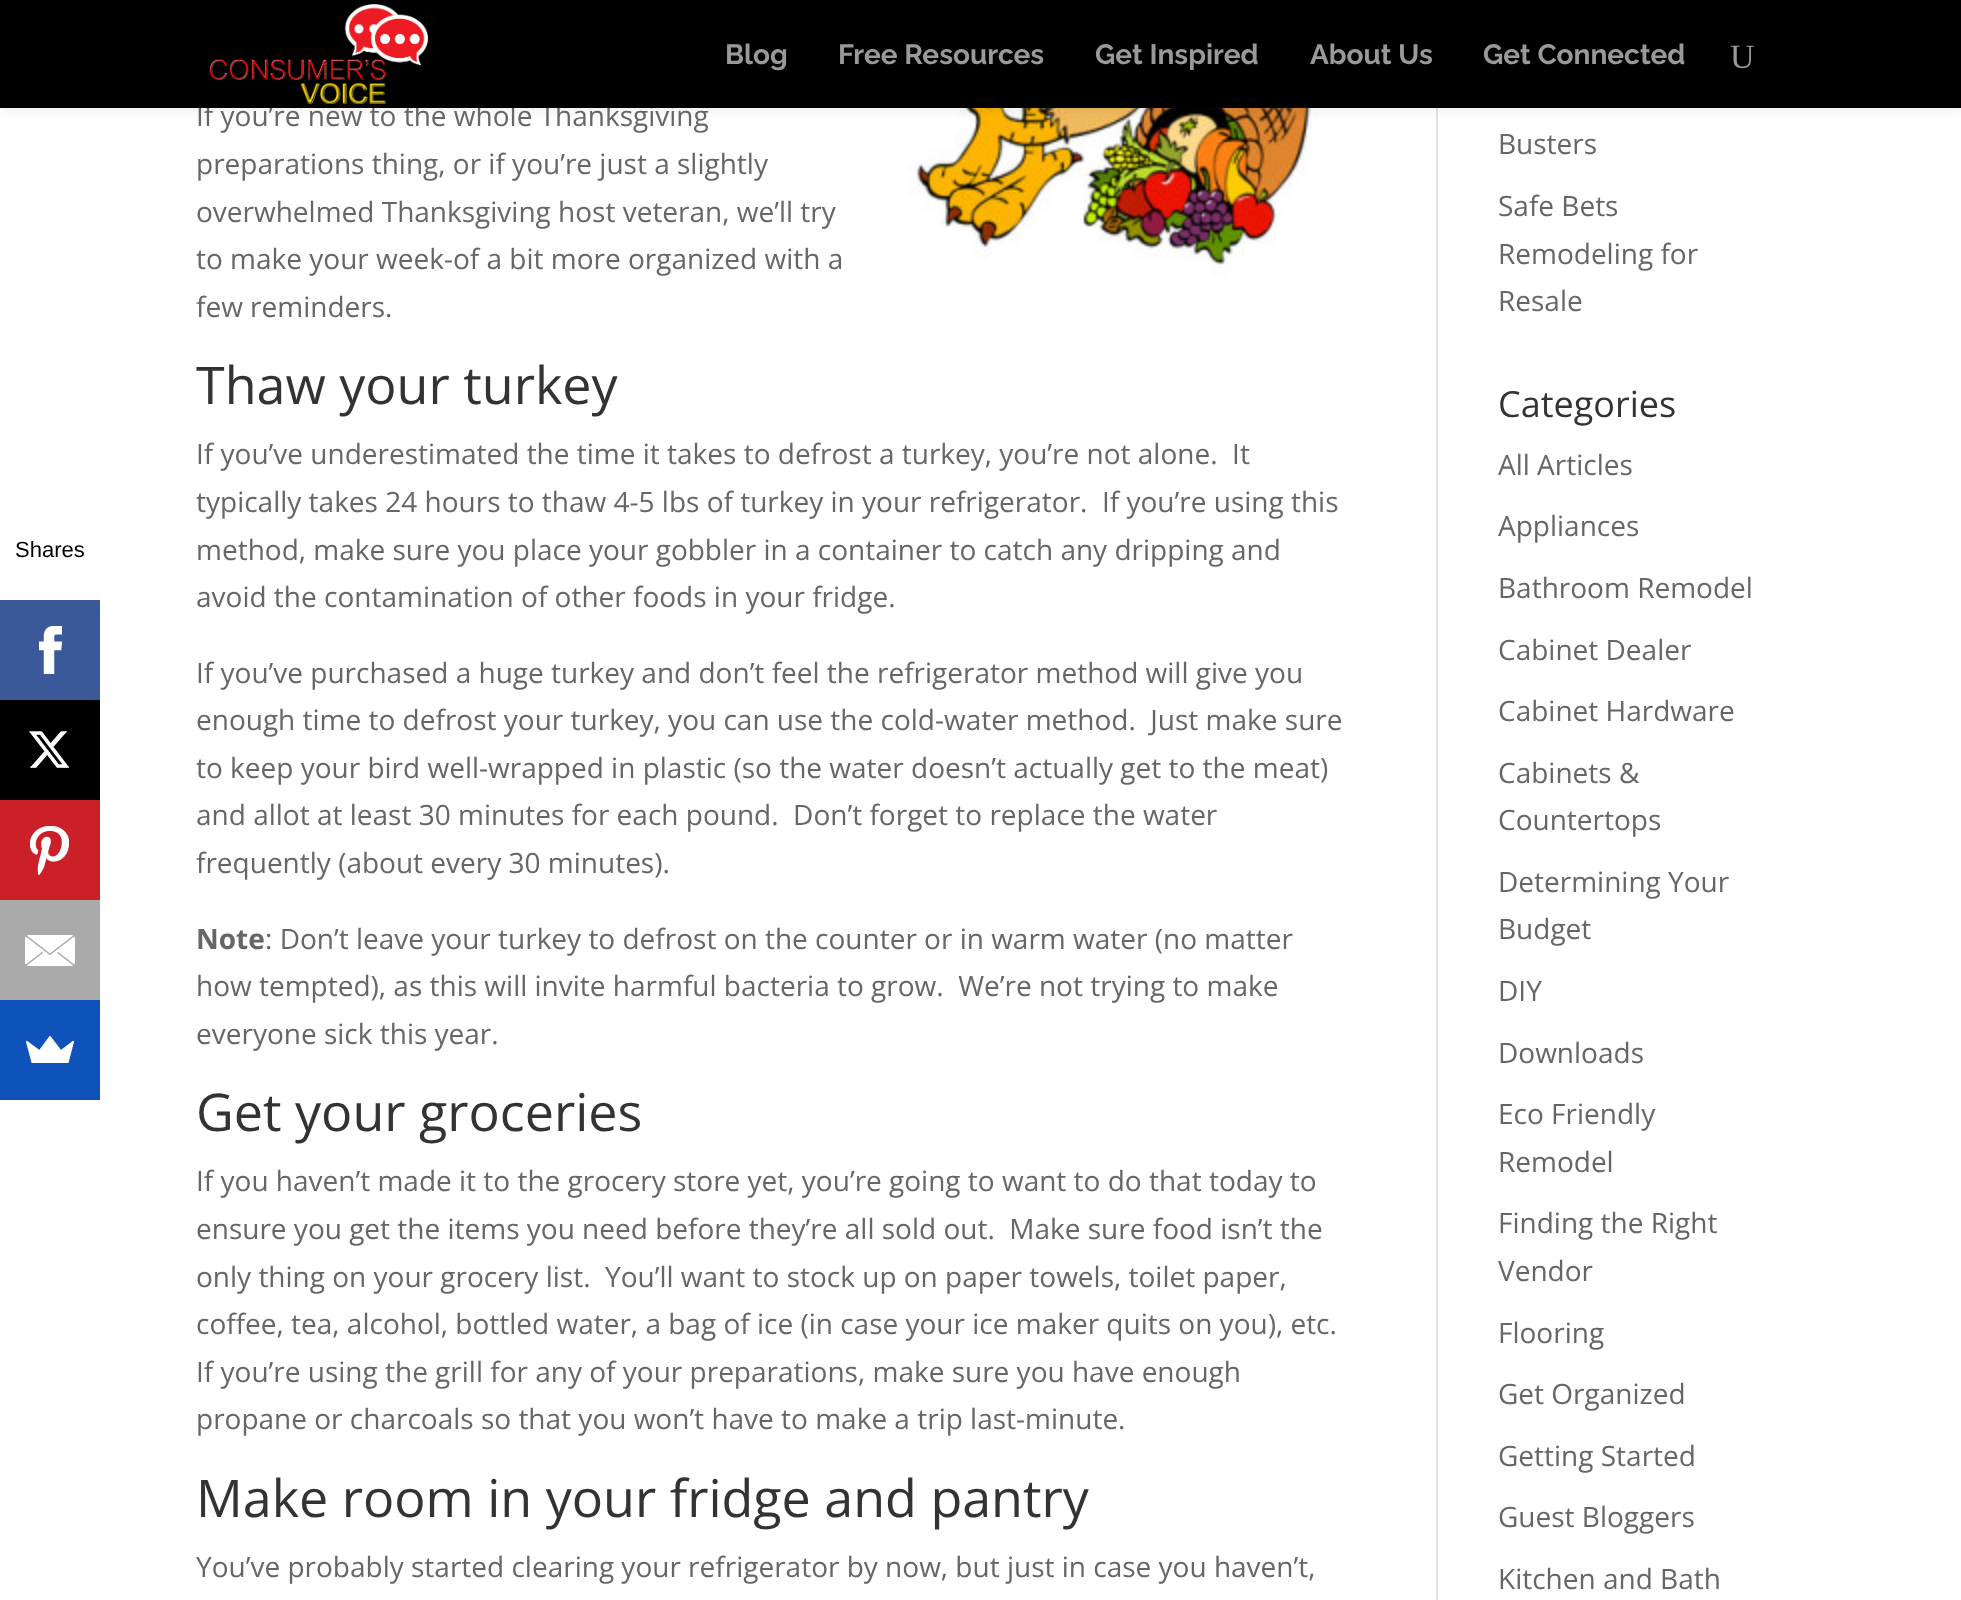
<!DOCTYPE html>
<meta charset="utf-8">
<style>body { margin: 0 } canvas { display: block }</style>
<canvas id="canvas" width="1961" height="1600"></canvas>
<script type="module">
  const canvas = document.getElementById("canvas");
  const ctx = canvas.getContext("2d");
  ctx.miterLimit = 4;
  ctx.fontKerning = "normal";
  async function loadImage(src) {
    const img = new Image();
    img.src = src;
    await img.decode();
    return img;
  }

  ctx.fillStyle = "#ffffff";
  ctx.fillRect(0, 0, 1961, 1600);
  ctx.font = "22px Liberation Sans";
  ctx.fillStyle = "#000000";
  ctx.fillText("Shares", 15, 557);
  ctx.fillStyle = "#3b5998";
  ctx.fillRect(0, 600, 100, 100);
  ctx.drawImage(await loadImage("img1.png"), 39, 626, 23, 48);
  ctx.fillStyle = "#000000";
  ctx.fillRect(0, 700, 100, 100);
  ctx.drawImage(await loadImage("img2.png"), 29, 731, 40, 37);
  ctx.fillStyle = "#cb2027";
  ctx.fillRect(0, 800, 100, 100);
  ctx.drawImage(await loadImage("img3.png"), 30, 826, 39, 49);
  ctx.fillStyle = "#aaaaaa";
  ctx.fillRect(0, 900, 100, 100);
  ctx.drawImage(await loadImage("img4.png"), 25, 935, 50, 31);
  ctx.fillStyle = "#0f52ba";
  ctx.fillRect(0, 1000, 100, 100);
  ctx.drawImage(await loadImage("img5.png"), 26, 1036, 48, 27);
  ctx.drawImage(await loadImage("img7.png"), 908, 108, 410, 168);
  ctx.fillStyle = "#e2e2e2";
  ctx.fillRect(1436, 108, 2, 1492);
  ctx.fillStyle = "rgba(0, 0, 0, 0.1)";
  ctx.filter = "blur(7px)";
  ctx.beginPath();
  ctx.rect(0, 0, 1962, 108);
  ctx.fill();
  ctx.filter = "none";
  ctx.font = "28px Open Sans";
  ctx.fillStyle = "#666666";
  ctx.fillText("If you’re new to the whole Thanksgiving", 196, 126);
  ctx.fillStyle = "#000000";
  ctx.fillRect(0, 0, 1961, 108);
  ctx.drawImage(await loadImage("img6.png"), 209, 4, 219, 100);
  ctx.font = "bold 28px Raleway";
  ctx.fillStyle = "#999999";
  ctx.fillText("Blog", 725, 64);
  ctx.fillText("Free Resources", 838, 64);
  ctx.fillText("Get Inspired", 1095, 64);
  ctx.fillText("About Us", 1310, 64);
  ctx.fillText("Get Connected", 1483, 64);
  ctx.font = "34px Liberation Serif";
  ctx.fillText("U", 1730, 68);
  ctx.font = "28px Open Sans";
  ctx.fillStyle = "#666666";
  ctx.fillText("preparations thing, or if you’re just a slightly", 196, 174);
  ctx.fillText("overwhelmed Thanksgiving host veteran, we’ll try", 196, 222);
  ctx.fillText("to make your week-of a bit more organized with a", 196, 269);
  ctx.fillText("few reminders.", 196, 317);
  ctx.font = "52px Open Sans";
  ctx.fillStyle = "#333333";
  ctx.fillText("Thaw your turkey", 196, 404);
  ctx.font = "28px Open Sans";
  ctx.fillStyle = "#666666";
  ctx.fillText("If you’ve underestimated the time it takes to defrost a turkey, you’re not alone.  It", 196, 464);
  ctx.fillText("typically takes 24 hours to thaw 4-5 lbs of turkey in your refrigerator.  If you’re using this", 196, 512);
  ctx.fillText("method, make sure you place your gobbler in a container to catch any dripping and", 196, 560);
  ctx.fillText("avoid the contamination of other foods in your fridge.", 196, 607);
  ctx.fillText("If you’ve purchased a huge turkey and don’t feel the refrigerator method will give you", 196, 683);
  ctx.fillText("enough time to defrost your turkey, you can use the cold-water method.  Just make sure", 196, 730);
  ctx.fillText("to keep your bird well-wrapped in plastic (so the water doesn’t actually get to the meat)", 196, 778);
  ctx.fillText("and allot at least 30 minutes for each pound.  Don’t forget to replace the water", 196, 825);
  ctx.fillText("frequently (about every 30 minutes).", 196, 873);
  ctx.font = "bold 28px Open Sans";
  ctx.fillText("Note", 196, 949);
  ctx.font = "28px Open Sans";
  ctx.fillText(": Don’t leave your turkey to defrost on the counter or in warm water (no matter", 265, 949);
  ctx.fillText("how tempted), as this will invite harmful bacteria to grow.  We’re not trying to make", 196, 996);
  ctx.fillText("everyone sick this year.", 196, 1044);
  ctx.font = "52px Open Sans";
  ctx.fillStyle = "#333333";
  ctx.fillText("Get your groceries", 196, 1131);
  ctx.font = "28px Open Sans";
  ctx.fillStyle = "#666666";
  ctx.fillText("If you haven’t made it to the grocery store yet, you’re going to want to do that today to", 196, 1191);
  ctx.fillText("ensure you get the items you need before they’re all sold out.  Make sure food isn’t the", 196, 1239);
  ctx.fillText("only thing on your grocery list.  You’ll want to stock up on paper towels, toilet paper,", 196, 1287);
  ctx.fillText("coffee, tea, alcohol, bottled water, a bag of ice (in case your ice maker quits on you), etc.", 196, 1334);
  ctx.fillText("If you’re using the grill for any of your preparations, make sure you have enough", 196, 1382);
  ctx.fillText("propane or charcoals so that you won’t have to make a trip last-minute.", 196, 1429);
  ctx.font = "52px Open Sans";
  ctx.fillStyle = "#333333";
  ctx.fillText("Make room in your fridge and pantry", 196, 1517);
  ctx.font = "28px Open Sans";
  ctx.fillStyle = "#666666";
  ctx.fillText("You’ve probably started clearing your refrigerator by now, but just in case you haven’t,", 196, 1577);
  ctx.fillText("Busters", 1498, 154);
  ctx.fillText("Safe Bets", 1498, 216);
  ctx.fillText("Remodeling for", 1498, 264);
  ctx.fillText("Resale", 1498, 311);
  ctx.font = "36px Open Sans";
  ctx.fillStyle = "#333333";
  ctx.fillText("Categories", 1498, 417);
  ctx.font = "28px Open Sans";
  ctx.fillStyle = "#666666";
  ctx.fillText("All Articles", 1498, 475);
  ctx.fillText("Appliances", 1498, 536);
  ctx.fillText("Bathroom Remodel", 1498, 598);
  ctx.fillText("Cabinet Dealer", 1498, 660);
  ctx.fillText("Cabinet Hardware", 1498, 721);
  ctx.fillText("Cabinets &", 1498, 783);
  ctx.fillText("Countertops", 1498, 830);
  ctx.fillText("Determining Your", 1498, 892);
  ctx.fillText("Budget", 1498, 939);
  ctx.fillText("DIY", 1498, 1001);
  ctx.fillText("Downloads", 1498, 1063);
  ctx.fillText("Eco Friendly", 1498, 1124);
  ctx.fillText("Remodel", 1498, 1172);
  ctx.fillText("Finding the Right", 1498, 1233);
  ctx.fillText("Vendor", 1498, 1281);
  ctx.fillText("Flooring", 1498, 1343);
  ctx.fillText("Get Organized", 1498, 1404);
  ctx.fillText("Getting Started", 1498, 1466);
  ctx.fillText("Guest Bloggers", 1498, 1527);
  ctx.fillText("Kitchen and Bath", 1498, 1589);
</script>
